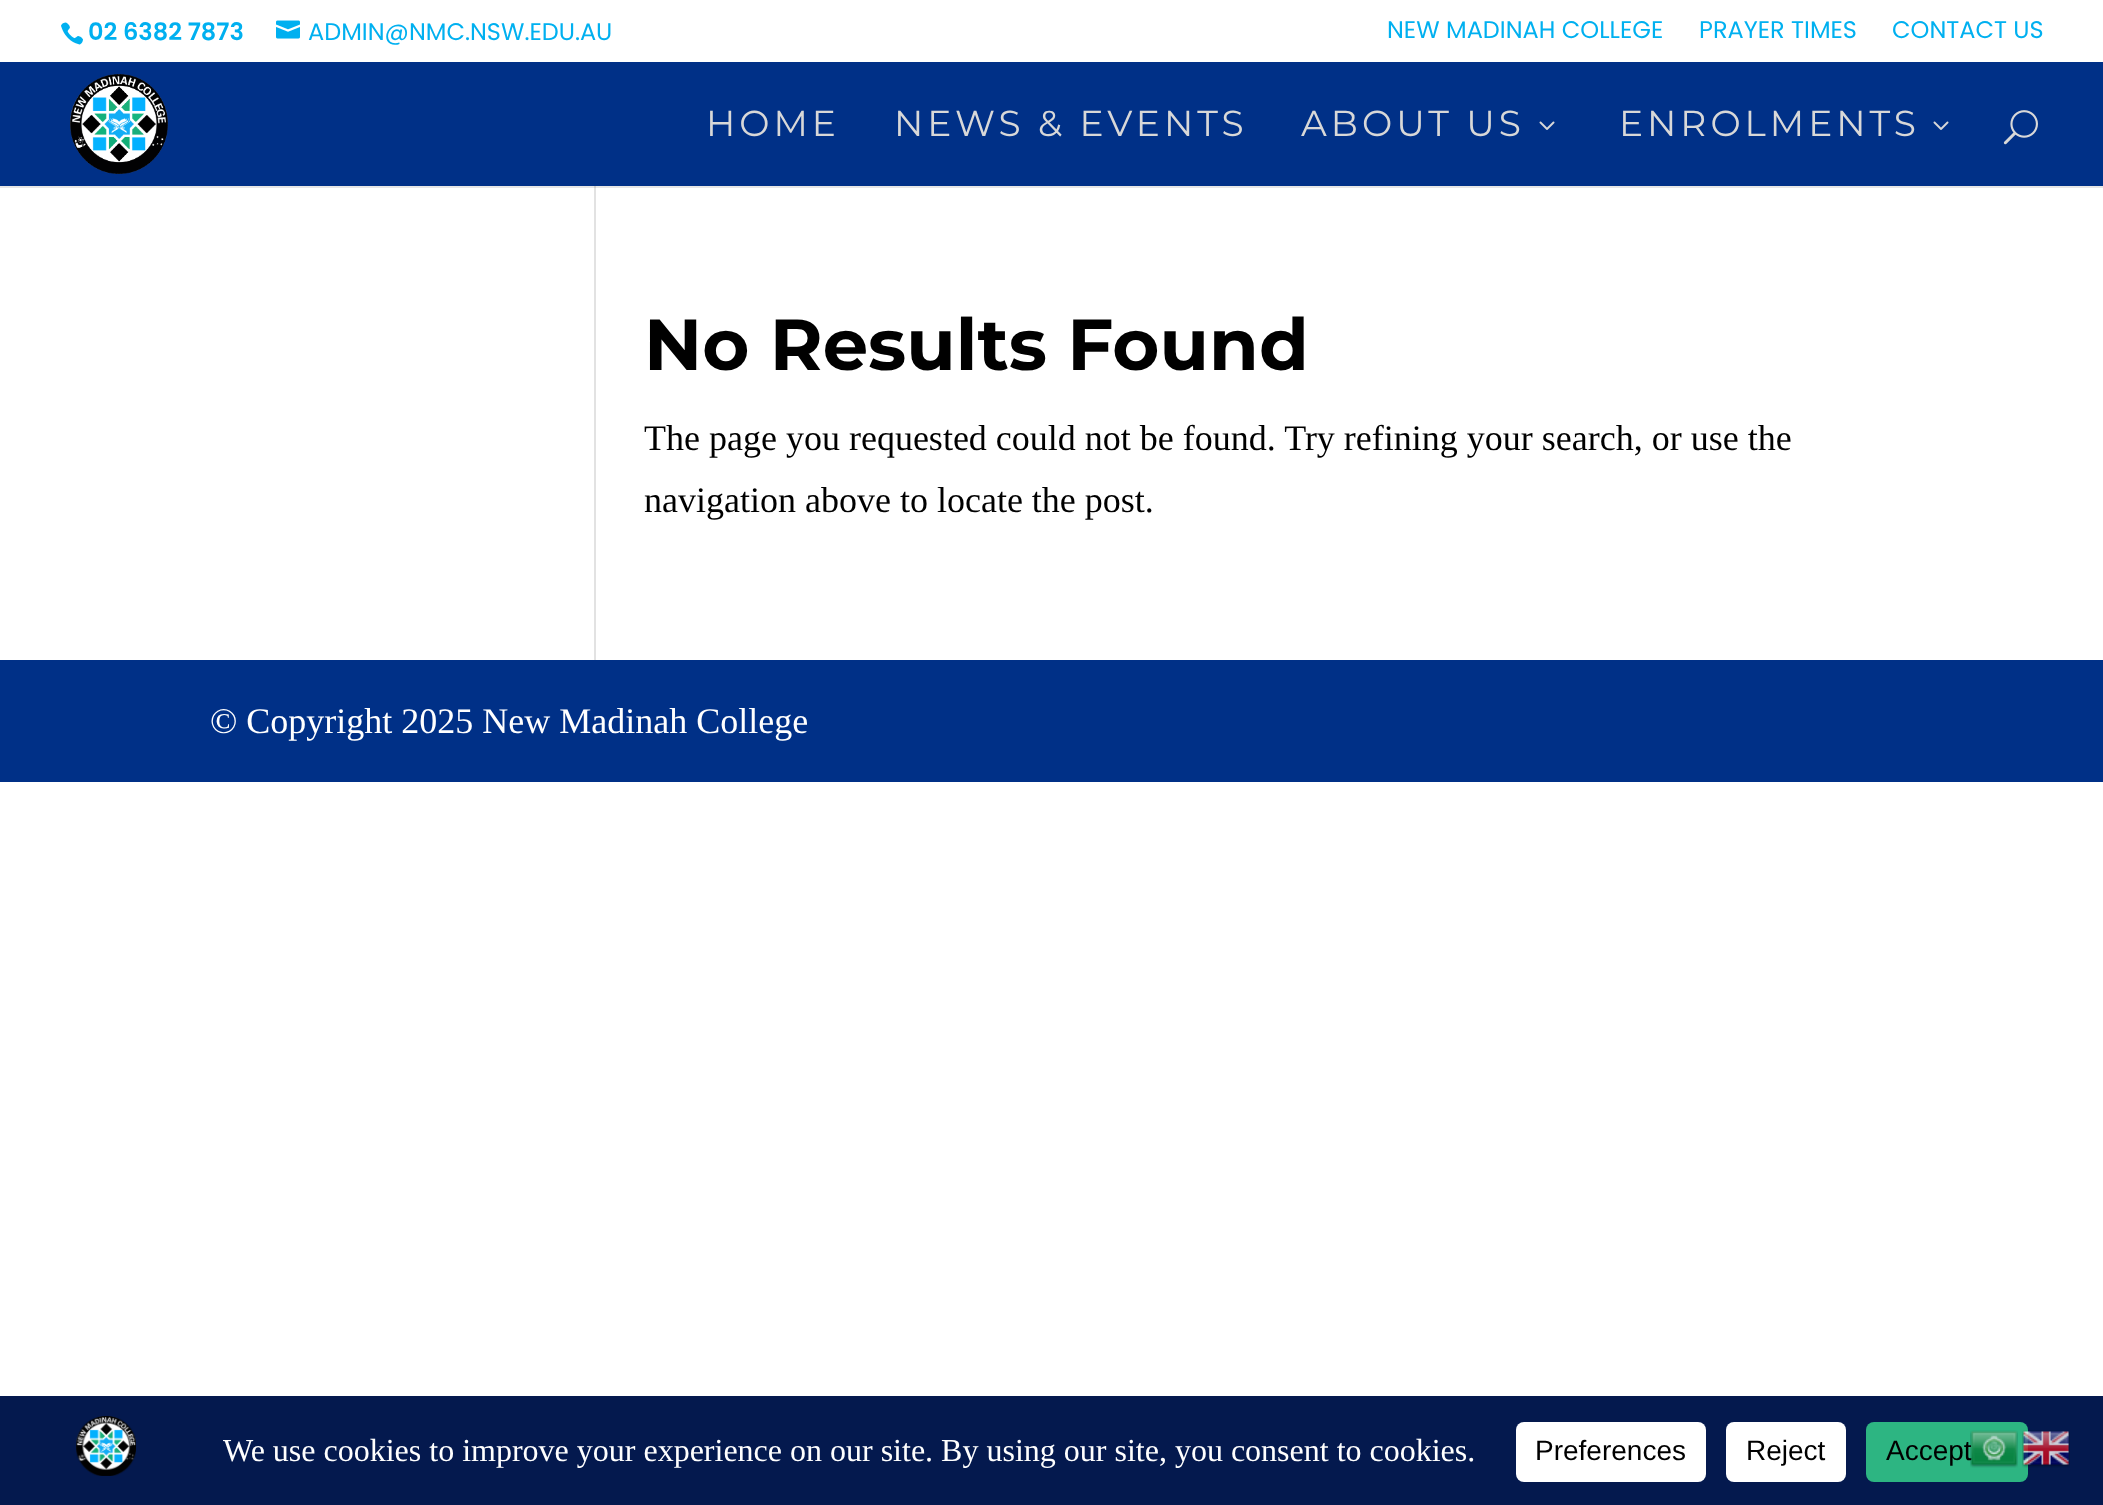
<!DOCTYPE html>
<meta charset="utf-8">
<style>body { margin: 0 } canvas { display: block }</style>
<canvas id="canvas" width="2103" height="1505"></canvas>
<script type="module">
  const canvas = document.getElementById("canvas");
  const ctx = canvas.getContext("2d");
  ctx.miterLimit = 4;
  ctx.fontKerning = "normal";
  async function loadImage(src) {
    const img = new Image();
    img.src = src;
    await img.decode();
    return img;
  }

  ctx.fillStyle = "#ffffff";
  ctx.fillRect(0, 0, 2103, 1505);
  ctx.fillStyle = "#e6e6e6";
  ctx.fillRect(0, 186, 2103, 2);
  ctx.drawImage(await loadImage("img1.png"), 61, 22, 22, 23);
  ctx.font = "600 24px Poppins";
  ctx.fillStyle = "#00b0f0";
  ctx.fillText("02 6382 7873", 88, 40);
  ctx.drawImage(await loadImage("img2.png"), 276, 20, 24, 19);
  ctx.font = "24px Poppins";
  ctx.fillText("ADMIN@NMC.NSW.EDU.AU", 308, 40);
  ctx.fillText("NEW MADINAH COLLEGE", 1387, 38);
  ctx.fillText("PRAYER TIMES", 1699, 38);
  ctx.fillText("CONTACT US", 1892, 38);
  ctx.fillStyle = "#003087";
  ctx.fillRect(0, 62, 2103, 124);
  ctx.drawImage(await loadImage("img3.png"), 70, 74, 98, 100);
  ctx.letterSpacing = "4px";
  ctx.font = "100 36px 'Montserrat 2'";
  ctx.fillStyle = "#d8d8d8";
  ctx.fillText("HOME", 706, 136);
  ctx.fillText("NEWS & EVENTS", 894, 136);
  ctx.fillText("ABOUT US", 1301, 136);
  ctx.drawImage(await loadImage("img4.png"), 1539, 121, 16, 9);
  ctx.fillText("ENROLMENTS", 1619, 136);
  ctx.drawImage(await loadImage("img4.png"), 1933, 121, 16, 9);
  ctx.drawImage(await loadImage("img5.png"), 2003, 110, 35, 35);
  ctx.fillStyle = "#e2e2e2";
  ctx.fillRect(594, 186, 2, 474);
  ctx.fillStyle = "#cbcbcb";
  ctx.fillRect(594, 186, 2, 2);
  ctx.letterSpacing = "0px";
  ctx.font = "100 72px Montserrat";
  ctx.fillStyle = "#000000";
  ctx.fillText("No Results Found", 644, 370);
  ctx.font = "36px Liberation Serif";
  ctx.fillText("The page you requested could not be found. Try refining your search, or use the", 644, 450);
  ctx.fillText("navigation above to locate the post.", 644, 512);
  ctx.fillStyle = "#003087";
  ctx.fillRect(0, 660, 2103, 122);
  ctx.fillStyle = "#ffffff";
  ctx.fillText("© Copyright 2025 New Madinah College", 210, 733);
  ctx.fillStyle = "#04194e";
  ctx.fillRect(0, 1396, 2103, 109);
  ctx.drawImage(await loadImage("img6.png"), 76, 1416, 60, 60);
  ctx.font = "32px Liberation Serif";
  ctx.fillStyle = "#ffffff";
  ctx.fillText("We use cookies to improve your experience on our site. By using our site, you consent to cookies.", 223, 1461);
  ctx.beginPath();
  ctx.roundRect(1516, 1422, 190, 60, 8);
  ctx.fill();
  ctx.font = "28px Liberation Sans";
  ctx.fillStyle = "#000000";
  ctx.fillText("Preferences", 1535, 1460);
  ctx.fillStyle = "#ffffff";
  ctx.beginPath();
  ctx.roundRect(1726, 1422, 120, 60, 8);
  ctx.fill();
  ctx.fillStyle = "#000000";
  ctx.fillText("Reject", 1746, 1460);
  ctx.fillStyle = "#2db582";
  ctx.beginPath();
  ctx.roundRect(1866, 1422, 162, 60, 8);
  ctx.fill();
  ctx.fillStyle = "#000000";
  ctx.fillText("Accept", 1886, 1460);
  ctx.drawImage(await loadImage("img7.png"), 1970, 1430, 48, 38);
  ctx.drawImage(await loadImage("img8.png"), 2022, 1430, 48, 38);
</script>
